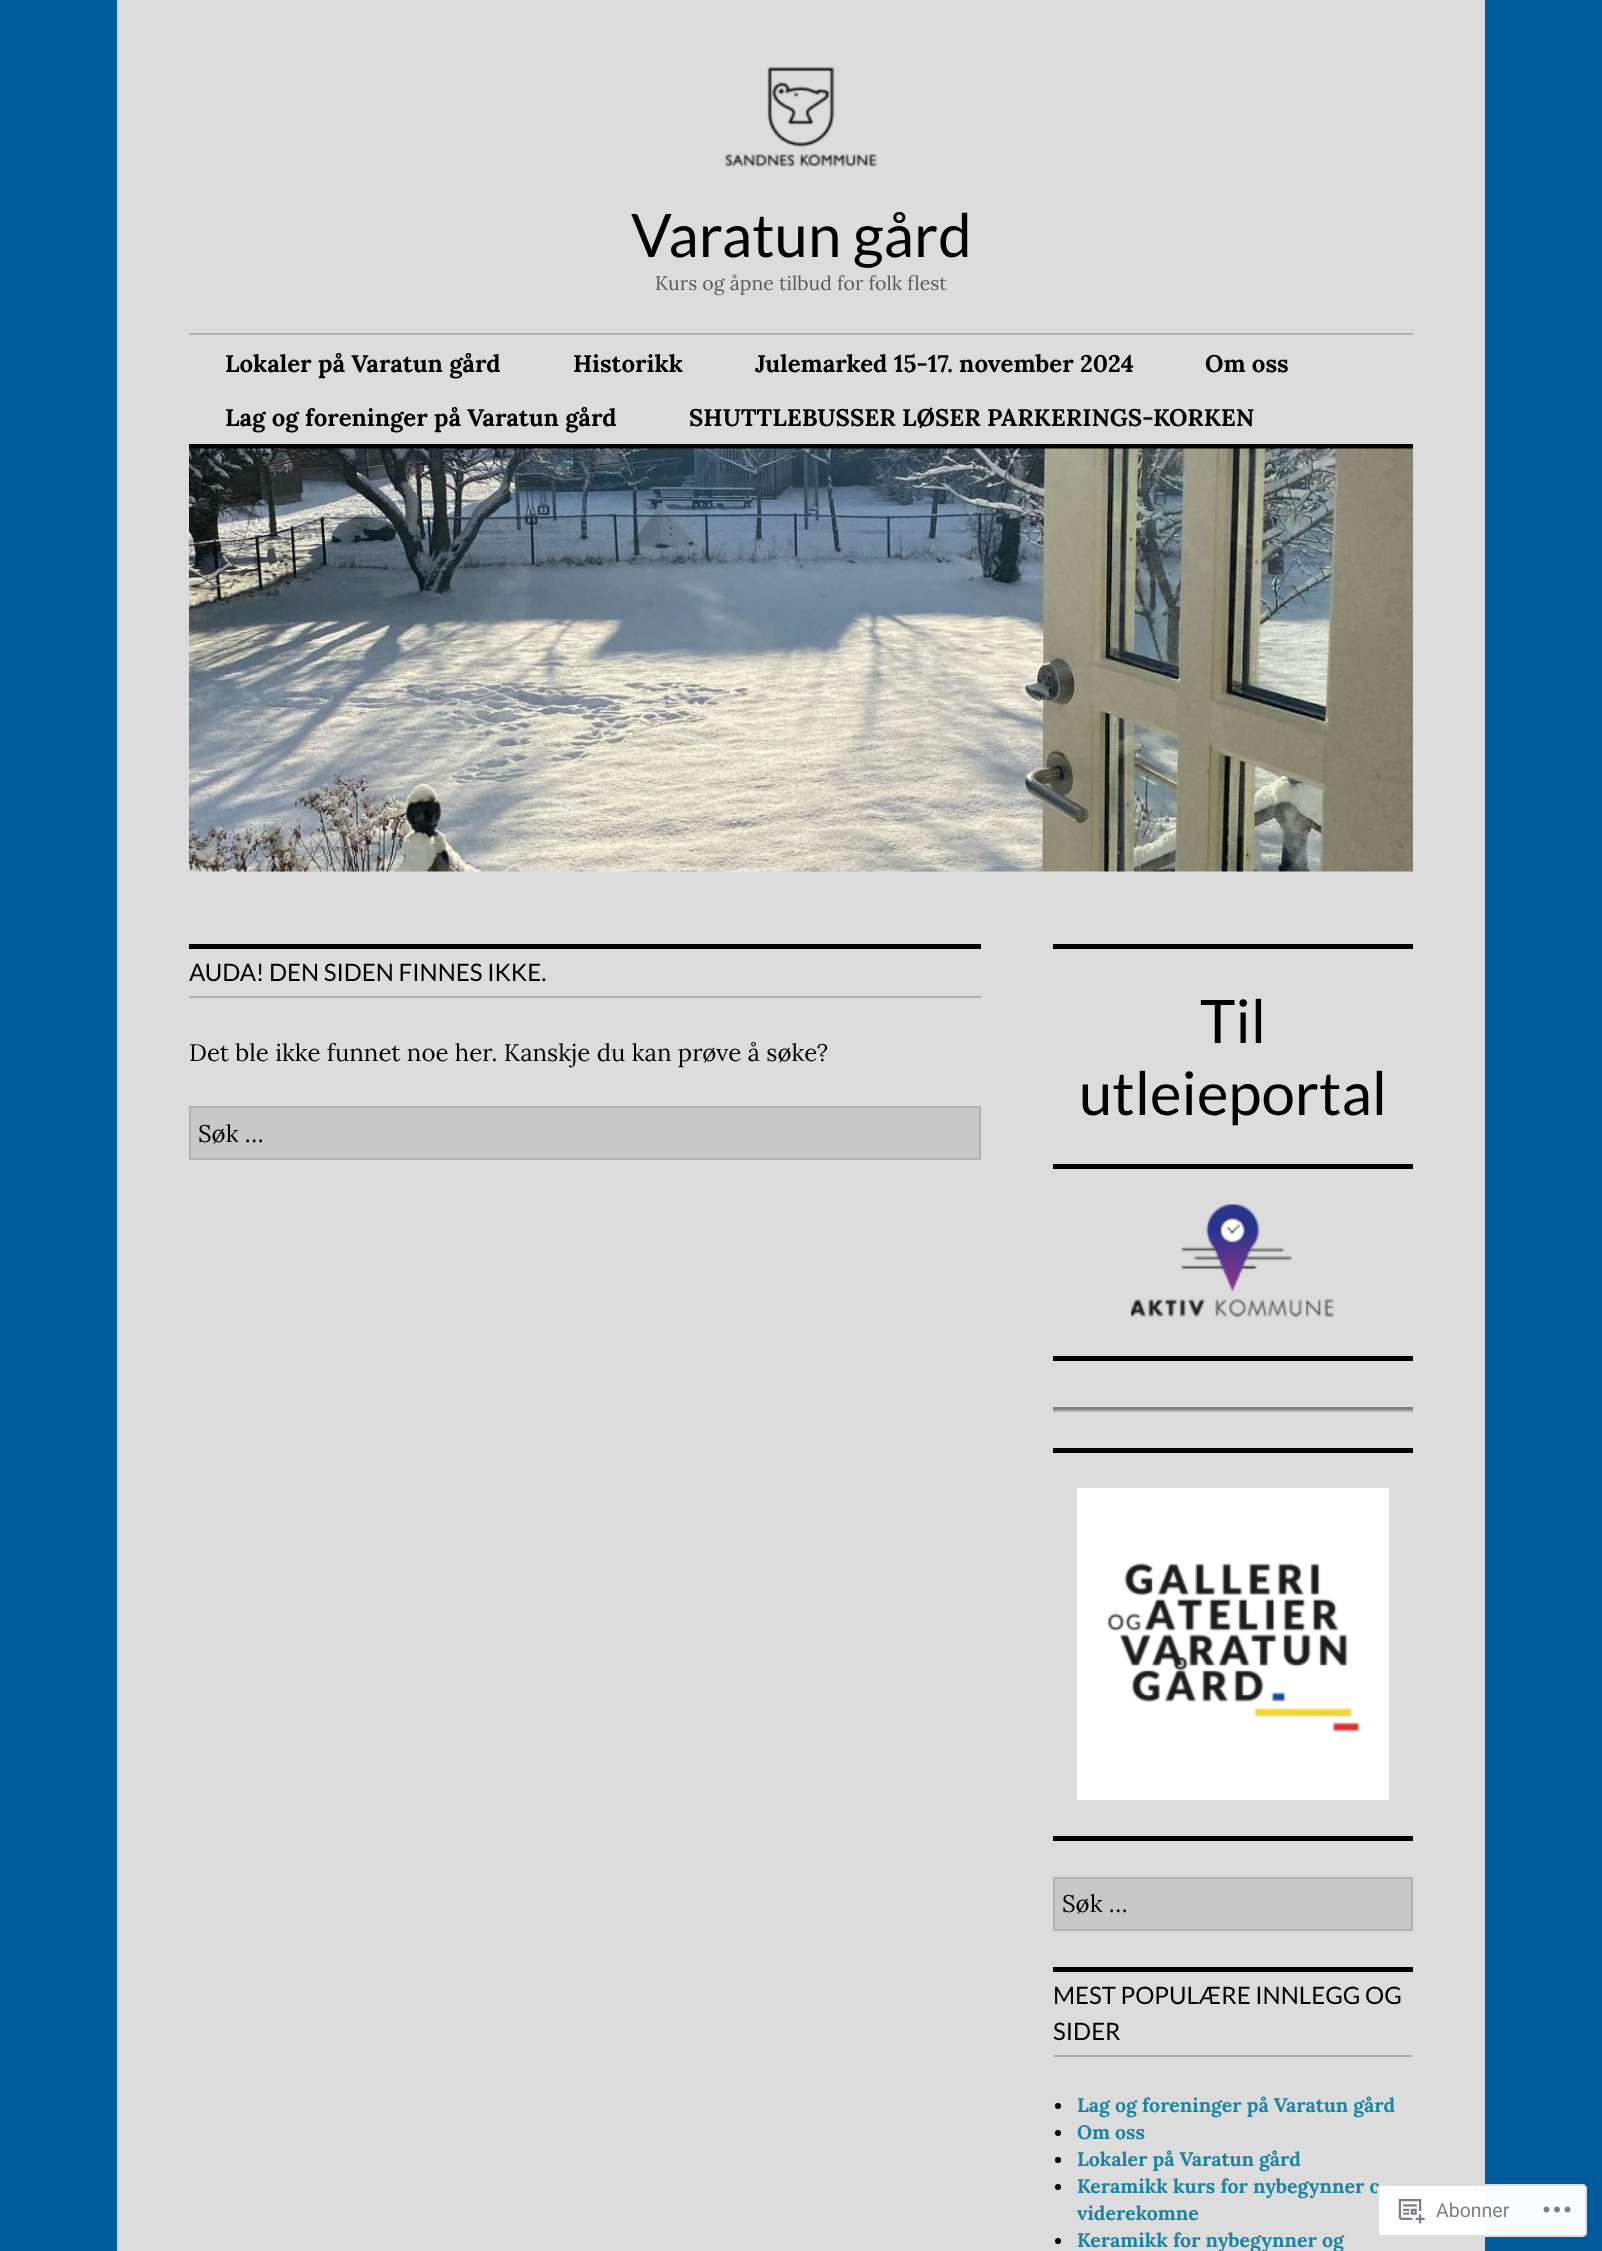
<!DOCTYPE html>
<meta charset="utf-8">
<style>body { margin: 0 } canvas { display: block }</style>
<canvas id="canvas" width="1602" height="2251"></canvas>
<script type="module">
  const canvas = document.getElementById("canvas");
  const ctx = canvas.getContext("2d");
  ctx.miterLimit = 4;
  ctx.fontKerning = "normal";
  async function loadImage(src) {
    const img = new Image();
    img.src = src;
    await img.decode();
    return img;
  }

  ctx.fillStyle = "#005a9b";
  ctx.fillRect(0, 0, 1602, 2251);
  ctx.fillStyle = "#dcdcdd";
  ctx.fillRect(117, 0, 1368, 2251);
  ctx.drawImage(await loadImage("img1.png"), 724, 67, 153, 100);
  ctx.font = "60px Lato";
  ctx.fillStyle = "#000000";
  ctx.fillText("Varatun gård", 631, 257);
  ctx.font = "19.5px Lora";
  ctx.fillStyle = "#5d595e";
  ctx.fillText("Kurs og åpne tilbud for folk flest", 655, 290);
  ctx.fillStyle = "#b1b1b3";
  ctx.fillRect(189, 333, 1224, 2);
  ctx.fillStyle = "#000000";
  ctx.fillRect(189, 444, 1224, 5);
  ctx.font = "bold 24px Lora";
  ctx.fillText("Lokaler på Varatun gård", 225, 372);
  ctx.fillText("Historikk", 573, 372);
  ctx.fillText("Julemarked 15-17. november 2024", 755, 372);
  ctx.fillText("Om oss", 1205, 372);
  ctx.fillText("Lag og foreninger på Varatun gård", 225, 426);
  ctx.fillText("SHUTTLEBUSSER LØSER PARKERINGS-KORKEN", 689, 426);
  ctx.drawImage(await loadImage("img2.png"), 189, 448, 1224, 424);
  ctx.fillRect(189, 944, 792, 5);
  ctx.fillStyle = "#b1b1b3";
  ctx.fillRect(189, 996, 792, 2);
  ctx.font = "24px Lato";
  ctx.fillStyle = "#000000";
  ctx.fillText("AUDA! DEN SIDEN FINNES IKKE.", 189, 981);
  ctx.font = "24px Lora";
  ctx.fillText("Det ble ikke funnet noe her. Kanskje du kan prøve å søke?", 189, 1061);
  ctx.fillStyle = "#c8c8c9";
  ctx.beginPath();
  ctx.rect(190, 1107, 790, 52);
  ctx.fill();
  ctx.strokeStyle = "#b1b1b3";
  ctx.lineWidth = 2;
  ctx.stroke();
  ctx.fillStyle = "#000000";
  ctx.fillText("Søk …", 198, 1142);
  ctx.fillRect(1053, 944, 360, 5);
  ctx.font = "60px Lato";
  ctx.fillText("Til", 1200, 1043);
  ctx.fillText("utleieportal", 1079, 1115);
  ctx.fillRect(1053, 1164, 360, 5);
  ctx.drawImage(await loadImage("img3.png"), 1131, 1204, 203, 114);
  ctx.fillRect(1053, 1356, 360, 5);
  ctx.fillStyle = "#b1b1b3";
  ctx.fillRect(1053, 1410, 360, 2);
  ctx.fillStyle = "#808080";
  ctx.fillRect(1053, 1407, 360, 3);
  ctx.fillStyle = "#000000";
  ctx.fillRect(1053, 1448, 360, 5);
  ctx.drawImage(await loadImage("img4.png"), 1077, 1488, 312, 312);
  ctx.fillRect(1053, 1836, 360, 5);
  ctx.fillStyle = "#c8c8c9";
  ctx.beginPath();
  ctx.rect(1054, 1878, 358, 52);
  ctx.fill();
  ctx.stroke();
  ctx.font = "24px Lora";
  ctx.fillStyle = "#000000";
  ctx.fillText("Søk …", 1062, 1912);
  ctx.fillRect(1053, 1967, 360, 5);
  ctx.fillStyle = "#b1b1b3";
  ctx.fillRect(1053, 2055, 360, 2);
  ctx.font = "24px Lato";
  ctx.fillStyle = "#000000";
  ctx.fillText("MEST POPULÆRE INNLEGG OG", 1053, 2004);
  ctx.fillText("SIDER", 1053, 2040);
  ctx.beginPath();
  ctx.arc(1058, 2106, 3, 0, Math.PI * 2);
  ctx.fill();
  ctx.font = "bold 19.5px Lora";
  ctx.fillStyle = "#1985a1";
  ctx.fillText("Lag og foreninger på Varatun gård", 1077, 2112);
  ctx.fillStyle = "#000000";
  ctx.beginPath();
  ctx.arc(1058, 2133, 3, 0, Math.PI * 2);
  ctx.fill();
  ctx.fillStyle = "#1985a1";
  ctx.fillText("Om oss", 1077, 2139);
  ctx.fillStyle = "#000000";
  ctx.beginPath();
  ctx.arc(1058, 2160, 3, 0, Math.PI * 2);
  ctx.fill();
  ctx.fillStyle = "#1985a1";
  ctx.fillText("Lokaler på Varatun gård", 1077, 2166);
  ctx.fillStyle = "#000000";
  ctx.beginPath();
  ctx.arc(1058, 2187, 3, 0, Math.PI * 2);
  ctx.fill();
  ctx.fillStyle = "#1985a1";
  ctx.fillText("Keramikk kurs for nybegynner o", 1077, 2193);
  ctx.fillText("viderekomne", 1077, 2220);
  ctx.fillStyle = "#000000";
  ctx.beginPath();
  ctx.arc(1058, 2241, 3, 0, Math.PI * 2);
  ctx.fill();
  ctx.fillStyle = "#1985a1";
  ctx.fillText("Keramikk for nybegynner og", 1077, 2247);
  ctx.fillStyle = "rgba(255, 255, 255, 0.98)";
  ctx.beginPath();
  ctx.roundRect(1377, 2184, 210, 53, 5);
  ctx.fill();
  ctx.beginPath();
  ctx.roundRect(1378, 2185, 208, 51, 4);
  ctx.strokeStyle = "rgba(220, 220, 222, 0.98)";
  ctx.stroke();
  ctx.drawImage(await loadImage("img5.png"), 1398, 2199, 27, 25);
  ctx.font = "19.5px Roboto";
  ctx.fillStyle = "#7b7f84";
  ctx.fillText("Abonner", 1436, 2217);
  ctx.drawImage(await loadImage("img6.png"), 1543, 2206, 28, 7);
</script>
